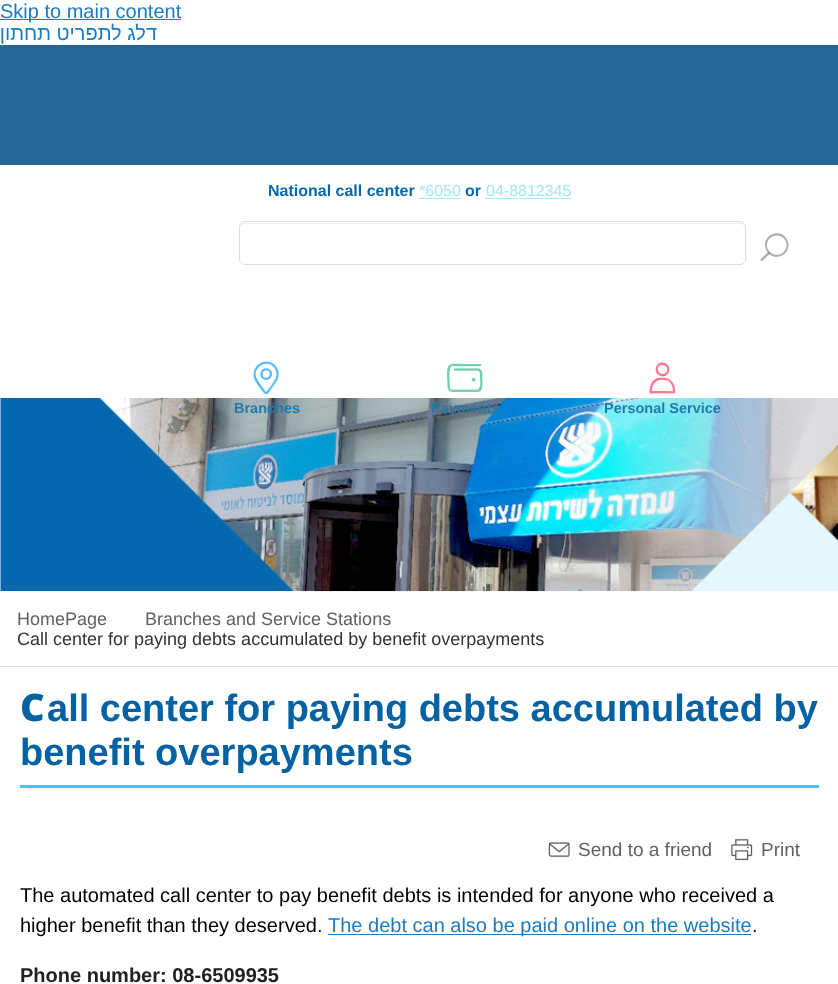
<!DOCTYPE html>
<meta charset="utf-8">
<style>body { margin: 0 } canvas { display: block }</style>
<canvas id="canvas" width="838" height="984"></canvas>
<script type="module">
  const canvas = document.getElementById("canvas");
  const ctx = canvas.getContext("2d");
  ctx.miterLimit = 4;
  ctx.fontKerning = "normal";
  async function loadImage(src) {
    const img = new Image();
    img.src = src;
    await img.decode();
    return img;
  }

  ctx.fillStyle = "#ffffff";
  ctx.fillRect(0, 0, 838, 984);
  ctx.fillStyle = "#197bc2";
  ctx.fillRect(0, 19, 181, 1);
  ctx.font = "20px Liberation Sans";
  ctx.fillText("Skip to main content", 0, 18);
  ctx.direction = "rtl";
  ctx.fillText("דלג לתפריט תחתון", 157, 40);
  ctx.fillStyle = "#246695";
  ctx.fillRect(0, 45, 838, 120);
  ctx.direction = "ltr";
  ctx.font = "bold 16px Liberation Sans";
  ctx.fillStyle = "#0368b0";
  ctx.fillText("National call center", 268, 196);
  ctx.font = "16px Liberation Sans";
  ctx.fillStyle = "#a5e4f9";
  ctx.fillText("*6050", 419, 196);
  ctx.fillRect(419, 198, 42, 1);
  ctx.font = "bold 16px Liberation Sans";
  ctx.fillStyle = "#0368b0";
  ctx.fillText("or", 465, 196);
  ctx.font = "16px Liberation Sans";
  ctx.fillStyle = "#a5e4f9";
  ctx.fillText("04-8812345", 486, 196);
  ctx.fillRect(485, 198, 86, 1);
  ctx.fillStyle = "#ececec";
  ctx.beginPath();
  ctx.moveTo(245, 224);
  ctx.lineTo(740, 224);
  ctx.bezierCurveTo(743, 224, 745, 226, 745, 229);
  ctx.lineTo(745, 228);
  ctx.bezierCurveTo(745, 225, 743, 223, 740, 223);
  ctx.lineTo(245, 223);
  ctx.bezierCurveTo(242, 223, 240, 225, 240, 228);
  ctx.lineTo(240, 229);
  ctx.bezierCurveTo(240, 226, 242, 224, 245, 224);
  ctx.closePath();
  ctx.fill();
  ctx.beginPath();
  ctx.roundRect(239.5, 221.5, 506, 43, 5.5);
  ctx.strokeStyle = "#dddddd";
  ctx.stroke();
  ctx.drawImage(await loadImage("img1.png"), 760, 233, 29, 28);
  ctx.drawImage(await loadImage("img2.png"), 253, 361, 26, 34);
  ctx.drawImage(await loadImage("img5.png"), 0, 398, 838, 194);
  ctx.font = "bold 14.5px Liberation Sans";
  ctx.fillStyle = "#227aac";
  ctx.fillText("Branches", 234, 413);
  ctx.drawImage(await loadImage("img3.png"), 447, 363, 36, 29);
  ctx.fillText("Payments", 431, 413);
  ctx.drawImage(await loadImage("img4.png"), 649, 362, 27, 32);
  ctx.fillText("Personal Service", 604, 413);
  ctx.fillStyle = "#dddddd";
  ctx.fillRect(0, 666, 838, 1);
  ctx.font = "18px Liberation Sans";
  ctx.fillStyle = "#616161";
  ctx.fillText("HomePage", 17, 625);
  ctx.fillText("Branches and Service Stations", 145, 625);
  ctx.fillStyle = "#333333";
  ctx.fillText("Call center for paying debts accumulated by benefit overpayments", 17, 645);
  ctx.fillStyle = "#3dc5f5";
  ctx.fillRect(20, 785, 799, 3);
  ctx.font = "900 38px Noto Sans";
  ctx.fillStyle = "#0362a4";
  ctx.fillText("C", 20, 721);
  ctx.font = "bold 38px Liberation Sans";
  ctx.fillText("all center for paying debts accumulated by", 47, 721);
  ctx.fillText("benefit overpayments", 20, 765);
  ctx.drawImage(await loadImage("img6.png"), 548, 842, 22, 15);
  ctx.font = "19px Liberation Sans";
  ctx.fillStyle = "#616161";
  ctx.fillText("Send to a friend", 578, 856);
  ctx.drawImage(await loadImage("img7.png"), 731, 839, 22, 22);
  ctx.fillText("Print", 761, 856);
  ctx.font = "20px Liberation Sans";
  ctx.fillStyle = "#000000";
  ctx.fillText("The automated call center to pay benefit debts is intended for anyone who received a", 20, 902);
  ctx.fillText("higher benefit than they deserved", 20, 932);
  ctx.fillStyle = "#212121";
  ctx.fillText(".", 317, 932);
  ctx.fillStyle = "#197bc2";
  ctx.fillRect(328, 934, 423, 1);
  ctx.fillText("The debt can also be paid online on the website", 328, 932);
  ctx.fillStyle = "#212121";
  ctx.fillText(".", 752, 932);
  ctx.font = "bold 20px Liberation Sans";
  ctx.fillText("Phone number: 08-6509935", 20, 982);
</script>
